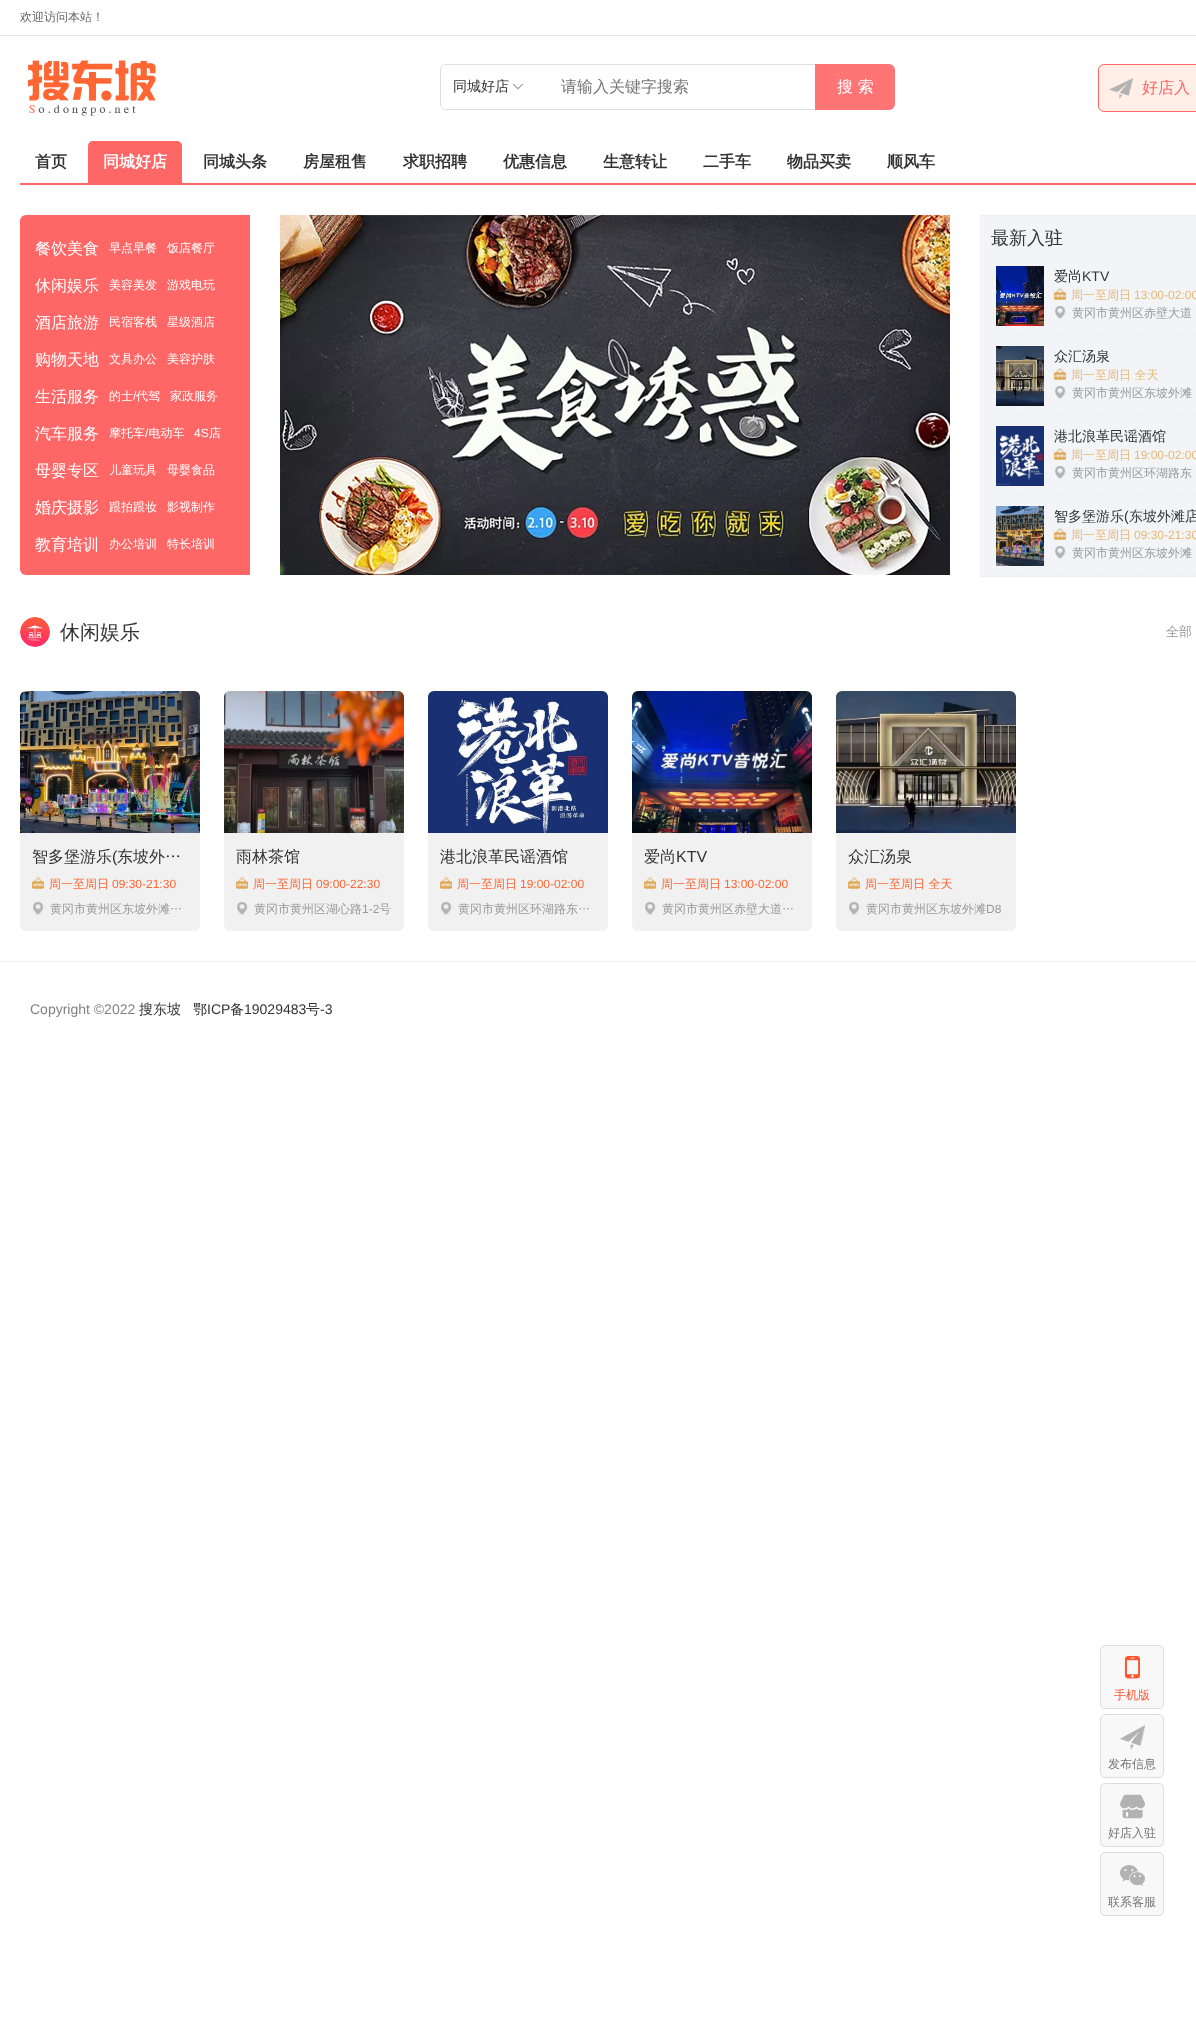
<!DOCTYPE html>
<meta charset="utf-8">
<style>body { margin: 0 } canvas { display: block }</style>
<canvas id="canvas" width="1196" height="2021"></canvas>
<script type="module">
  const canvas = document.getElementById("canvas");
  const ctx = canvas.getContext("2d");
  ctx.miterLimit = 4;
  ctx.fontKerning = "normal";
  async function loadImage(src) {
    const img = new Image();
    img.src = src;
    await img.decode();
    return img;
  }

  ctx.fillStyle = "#ffffff";
  ctx.fillRect(0, 0, 1196, 2021);
  ctx.fillStyle = "#e6e6e6";
  ctx.fillRect(0, 35, 1196, 1);
  ctx.font = "500 12px WenQuanYi Zen Hei";
  ctx.fillStyle = "#666666";
  ctx.fillText("欢迎访问本站！", 20, 21);
  ctx.drawImage(await loadImage("img1.png"), 27, 60, 129, 56);
  ctx.fillStyle = "#dedede";
  ctx.beginPath();
  ctx.moveTo(446, 64);
  ctx.lineTo(535, 64);
  ctx.lineTo(535, 110);
  ctx.lineTo(446, 110);
  ctx.bezierCurveTo(443, 110, 440, 107, 440, 104);
  ctx.lineTo(440, 70);
  ctx.bezierCurveTo(440, 67, 443, 64, 446, 64);
  ctx.closePath();
  ctx.moveTo(446, 65);
  ctx.lineTo(535, 65);
  ctx.lineTo(535, 109);
  ctx.lineTo(446, 109);
  ctx.bezierCurveTo(443, 109, 441, 107, 441, 104);
  ctx.lineTo(441, 70);
  ctx.bezierCurveTo(441, 67, 443, 65, 446, 65);
  ctx.closePath();
  ctx.fill("evenodd");
  ctx.font = "500 14px WenQuanYi Zen Hei";
  ctx.fillStyle = "#333333";
  ctx.fillText("同城好店", 453, 91);
  ctx.fillStyle = "#999999";
  ctx.beginPath();
  ctx.moveTo(523.5, 84);
  ctx.lineTo(518, 89.5);
  ctx.lineTo(518, 88);
  ctx.lineTo(522, 84);
  ctx.closePath();
  ctx.moveTo(518, 89.5);
  ctx.lineTo(512.5, 84);
  ctx.lineTo(514, 84);
  ctx.lineTo(518, 88);
  ctx.closePath();
  ctx.fill();
  ctx.fillStyle = "#dedede";
  ctx.fillRect(535, 64, 280, 1);
  ctx.fillRect(535, 109, 280, 1);
  ctx.font = "500 16px WenQuanYi Zen Hei";
  ctx.fillStyle = "#757575";
  ctx.fillText("请输入关键字搜索", 561, 92);
  ctx.fillStyle = "#ff7575";
  ctx.beginPath();
  ctx.roundRect(815, 64, 80, 46, [0, 6, 6, 0]);
  ctx.fill();
  ctx.fillStyle = "#ffffff";
  ctx.fillText("搜 索", 837, 92);
  ctx.fillStyle = "#ffefe7";
  ctx.beginPath();
  ctx.roundRect(1098.5, 64.5, 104, 47, 5.5);
  ctx.fill();
  ctx.strokeStyle = "#ff6666";
  ctx.stroke();
  ctx.drawImage(await loadImage("img2.png"), 1109, 78, 24, 21);
  ctx.fillStyle = "#ff6666";
  ctx.fillText("好店入", 1142, 93);
  ctx.fillRect(20, 183, 1176, 2);
  ctx.font = "bold 16px WenQuanYi Zen Hei";
  ctx.fillStyle = "#333333";
  ctx.fillText("首页", 35, 167);
  ctx.fillStyle = "#ff6666";
  ctx.beginPath();
  ctx.roundRect(88, 141, 94, 42, [5, 5, 0, 0]);
  ctx.fill();
  ctx.fillStyle = "#ffffff";
  ctx.fillText("同城好店", 103, 167);
  ctx.fillStyle = "#333333";
  ctx.fillText("同城头条", 203, 167);
  ctx.fillText("房屋租售", 303, 167);
  ctx.fillText("求职招聘", 403, 167);
  ctx.fillText("优惠信息", 503, 167);
  ctx.fillText("生意转让", 603, 167);
  ctx.fillText("二手车", 703, 167);
  ctx.fillText("物品买卖", 787, 167);
  ctx.fillText("顺风车", 887, 167);
  ctx.fillStyle = "#ff6666";
  ctx.beginPath();
  ctx.roundRect(20, 215, 230, 360, [6, 0, 0, 6]);
  ctx.fill();
  ctx.font = "500 16px WenQuanYi Zen Hei";
  ctx.fillStyle = "#ffffff";
  ctx.fillText("餐饮美食", 35, 254);
  ctx.font = "500 12px WenQuanYi Zen Hei";
  ctx.fillText("早点早餐", 109, 252);
  ctx.fillText("饭店餐厅", 167, 252);
  ctx.font = "500 16px WenQuanYi Zen Hei";
  ctx.fillText("休闲娱乐", 35, 291);
  ctx.font = "500 12px WenQuanYi Zen Hei";
  ctx.fillText("美容美发", 109, 289);
  ctx.fillText("游戏电玩", 167, 289);
  ctx.font = "500 16px WenQuanYi Zen Hei";
  ctx.fillText("酒店旅游", 35, 328);
  ctx.font = "500 12px WenQuanYi Zen Hei";
  ctx.fillText("民宿客栈", 109, 326);
  ctx.fillText("星级酒店", 167, 326);
  ctx.font = "500 16px WenQuanYi Zen Hei";
  ctx.fillText("购物天地", 35, 365);
  ctx.font = "500 12px WenQuanYi Zen Hei";
  ctx.fillText("文具办公", 109, 363);
  ctx.fillText("美容护肤", 167, 363);
  ctx.font = "500 16px WenQuanYi Zen Hei";
  ctx.fillText("生活服务", 35, 402);
  ctx.font = "500 12px WenQuanYi Zen Hei";
  ctx.fillText("的士", 109, 400);
  ctx.font = "12px Liberation Sans";
  ctx.fillText("/", 133, 400);
  ctx.font = "500 12px WenQuanYi Zen Hei";
  ctx.fillText("代驾", 136, 400);
  ctx.fillText("家政服务", 170, 400);
  ctx.font = "500 16px WenQuanYi Zen Hei";
  ctx.fillText("汽车服务", 35, 439);
  ctx.font = "500 12px WenQuanYi Zen Hei";
  ctx.fillText("摩托车 电动车", 109, 437);
  ctx.font = "12px Liberation Sans";
  ctx.fillText("/", 145, 437);
  ctx.fillText("4S", 194, 437);
  ctx.font = "500 12px WenQuanYi Zen Hei";
  ctx.fillText("店", 209, 437);
  ctx.font = "500 16px WenQuanYi Zen Hei";
  ctx.fillText("母婴专区", 35, 476);
  ctx.font = "500 12px WenQuanYi Zen Hei";
  ctx.fillText("儿童玩具", 109, 474);
  ctx.fillText("母婴食品", 167, 474);
  ctx.font = "500 16px WenQuanYi Zen Hei";
  ctx.fillText("婚庆摄影", 35, 513);
  ctx.font = "500 12px WenQuanYi Zen Hei";
  ctx.fillText("跟拍跟妆", 109, 511);
  ctx.fillText("影视制作", 167, 511);
  ctx.font = "500 16px WenQuanYi Zen Hei";
  ctx.fillText("教育培训", 35, 550);
  ctx.font = "500 12px WenQuanYi Zen Hei";
  ctx.fillText("办公培训", 109, 548);
  ctx.fillText("特长培训", 167, 548);
  ctx.drawImage(await loadImage("img3.png"), 280, 215, 670, 360);
  ctx.strokeStyle = "#f0f0f0";
  ctx.strokeRect(980.5, 215.5, 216, 361);
  ctx.fillStyle = "#f3f4f8";
  ctx.fillRect(981, 216, 215, 360);
  ctx.font = "500 18px WenQuanYi Zen Hei";
  ctx.fillStyle = "#333333";
  ctx.fillText("最新入驻", 991, 244);
  ctx.beginPath();
  ctx.moveTo(996, 335.5);
  ctx.lineTo(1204, 335.5);
  ctx.strokeStyle = "#eeeeee";
  ctx.setLineDash([3, 2]);
  ctx.stroke();
  ctx.drawImage(await loadImage("img4.png"), 996, 266, 48, 60);
  ctx.font = "500 14px WenQuanYi Zen Hei";
  ctx.fillText("爱尚", 1054, 281);
  ctx.font = "14px Liberation Sans";
  ctx.fillText("KTV", 1082, 281);
  ctx.drawImage(await loadImage("img5.png"), 1054, 288, 12, 12);
  ctx.font = "500 12px WenQuanYi Zen Hei";
  ctx.fillStyle = "#e5b875";
  ctx.fillText("周一至周日", 1071, 299);
  ctx.font = "12px Liberation Sans";
  ctx.fillText("13:00-02:00", 1134, 299);
  ctx.drawImage(await loadImage("img6.png"), 1055, 306, 11, 13);
  ctx.font = "500 12px WenQuanYi Zen Hei";
  ctx.fillStyle = "#999999";
  ctx.fillText("黄冈市黄州区赤壁大道", 1072, 317);
  ctx.beginPath();
  ctx.moveTo(996, 415.5);
  ctx.lineTo(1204, 415.5);
  ctx.stroke();
  ctx.drawImage(await loadImage("img7.png"), 996, 346, 48, 60);
  ctx.font = "500 14px WenQuanYi Zen Hei";
  ctx.fillStyle = "#333333";
  ctx.fillText("众汇汤泉", 1054, 361);
  ctx.drawImage(await loadImage("img8.png"), 1054, 368, 12, 12);
  ctx.font = "500 12px WenQuanYi Zen Hei";
  ctx.fillStyle = "#e5b875";
  ctx.fillText("周一至周日 全天", 1071, 379);
  ctx.drawImage(await loadImage("img9.png"), 1055, 386, 11, 13);
  ctx.fillStyle = "#999999";
  ctx.fillText("黄冈市黄州区东坡外滩", 1072, 397);
  ctx.beginPath();
  ctx.moveTo(996, 495.5);
  ctx.lineTo(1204, 495.5);
  ctx.stroke();
  ctx.drawImage(await loadImage("img10.png"), 996, 426, 48, 60);
  ctx.font = "500 14px WenQuanYi Zen Hei";
  ctx.fillStyle = "#333333";
  ctx.fillText("港北浪革民谣酒馆", 1054, 441);
  ctx.drawImage(await loadImage("img5.png"), 1054, 448, 12, 12);
  ctx.font = "500 12px WenQuanYi Zen Hei";
  ctx.fillStyle = "#e5b875";
  ctx.fillText("周一至周日", 1071, 459);
  ctx.font = "12px Liberation Sans";
  ctx.fillText("19:00-02:00", 1134, 459);
  ctx.drawImage(await loadImage("img9.png"), 1055, 466, 11, 13);
  ctx.font = "500 12px WenQuanYi Zen Hei";
  ctx.fillStyle = "#999999";
  ctx.fillText("黄冈市黄州区环湖路东", 1072, 477);
  ctx.beginPath();
  ctx.moveTo(996, 575.5);
  ctx.lineTo(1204, 575.5);
  ctx.stroke();
  ctx.drawImage(await loadImage("img11.png"), 996, 506, 48, 60);
  ctx.font = "500 14px WenQuanYi Zen Hei";
  ctx.fillStyle = "#333333";
  ctx.fillText("智多堡游乐", 1054, 521);
  ctx.font = "14px Liberation Sans";
  ctx.fillText("(", 1124, 521);
  ctx.font = "500 14px WenQuanYi Zen Hei";
  ctx.fillText("东坡外滩店", 1129, 521);
  ctx.drawImage(await loadImage("img5.png"), 1054, 528, 12, 12);
  ctx.font = "500 12px WenQuanYi Zen Hei";
  ctx.fillStyle = "#e5b875";
  ctx.fillText("周一至周日", 1071, 539);
  ctx.font = "12px Liberation Sans";
  ctx.fillText("09:30-21:30", 1134, 539);
  ctx.drawImage(await loadImage("img9.png"), 1055, 546, 11, 13);
  ctx.font = "500 12px WenQuanYi Zen Hei";
  ctx.fillStyle = "#999999";
  ctx.fillText("黄冈市黄州区东坡外滩", 1072, 557);
  ctx.drawImage(await loadImage("img12.png"), 20, 617, 30, 30);
  ctx.font = "500 20px WenQuanYi Zen Hei";
  ctx.fillStyle = "#333333";
  ctx.fillText("休闲娱乐", 60, 639);
  ctx.font = "500 13px WenQuanYi Zen Hei";
  ctx.fillStyle = "#999999";
  ctx.fillText("全部", 1166, 636);
  ctx.fillStyle = "#f1f1f1";
  ctx.beginPath();
  ctx.roundRect(20, 691, 180, 240, 6);
  ctx.fill();
  ctx.drawImage(await loadImage("img13.png"), 20, 691, 180, 142);
  ctx.font = "500 16px WenQuanYi Zen Hei";
  ctx.fillStyle = "#333333";
  ctx.fillText("智多堡游乐", 32, 862);
  ctx.font = "16px Liberation Sans";
  ctx.fillText("(", 112, 862);
  ctx.font = "500 16px WenQuanYi Zen Hei";
  ctx.fillText("东坡外…", 117, 862);
  ctx.drawImage(await loadImage("img14.png"), 32, 877, 12, 12);
  ctx.font = "500 12px WenQuanYi Zen Hei";
  ctx.fillStyle = "#ff6633";
  ctx.fillText("周一至周日", 49, 888);
  ctx.font = "12px Liberation Sans";
  ctx.fillText("09:30-21:30", 112, 888);
  ctx.drawImage(await loadImage("img15.png"), 33, 902, 11, 13);
  ctx.font = "500 12px WenQuanYi Zen Hei";
  ctx.fillStyle = "#999999";
  ctx.fillText("黄冈市黄州区东坡外滩…", 50, 913);
  ctx.fillStyle = "#f1f1f1";
  ctx.beginPath();
  ctx.roundRect(224, 691, 180, 240, 6);
  ctx.fill();
  ctx.drawImage(await loadImage("img16.png"), 224, 691, 180, 142);
  ctx.font = "500 16px WenQuanYi Zen Hei";
  ctx.fillStyle = "#333333";
  ctx.fillText("雨林茶馆", 236, 862);
  ctx.drawImage(await loadImage("img14.png"), 236, 877, 12, 12);
  ctx.font = "500 12px WenQuanYi Zen Hei";
  ctx.fillStyle = "#ff6633";
  ctx.fillText("周一至周日", 253, 888);
  ctx.font = "12px Liberation Sans";
  ctx.fillText("09:00-22:30", 316, 888);
  ctx.drawImage(await loadImage("img15.png"), 237, 902, 11, 13);
  ctx.font = "500 12px WenQuanYi Zen Hei";
  ctx.fillStyle = "#999999";
  ctx.fillText("黄冈市黄州区湖心路", 254, 913);
  ctx.font = "12px Liberation Sans";
  ctx.fillText("1-2", 362, 913);
  ctx.font = "500 12px WenQuanYi Zen Hei";
  ctx.fillText("号", 379, 913);
  ctx.fillStyle = "#f1f1f1";
  ctx.beginPath();
  ctx.roundRect(428, 691, 180, 240, 6);
  ctx.fill();
  ctx.drawImage(await loadImage("img17.png"), 428, 691, 180, 142);
  ctx.font = "500 16px WenQuanYi Zen Hei";
  ctx.fillStyle = "#333333";
  ctx.fillText("港北浪革民谣酒馆", 440, 862);
  ctx.drawImage(await loadImage("img14.png"), 440, 877, 12, 12);
  ctx.font = "500 12px WenQuanYi Zen Hei";
  ctx.fillStyle = "#ff6633";
  ctx.fillText("周一至周日", 457, 888);
  ctx.font = "12px Liberation Sans";
  ctx.fillText("19:00-02:00", 520, 888);
  ctx.drawImage(await loadImage("img15.png"), 441, 902, 11, 13);
  ctx.font = "500 12px WenQuanYi Zen Hei";
  ctx.fillStyle = "#999999";
  ctx.fillText("黄冈市黄州区环湖路东…", 458, 913);
  ctx.fillStyle = "#f1f1f1";
  ctx.beginPath();
  ctx.roundRect(632, 691, 180, 240, 6);
  ctx.fill();
  ctx.drawImage(await loadImage("img18.png"), 632, 691, 180, 142);
  ctx.font = "500 16px WenQuanYi Zen Hei";
  ctx.fillStyle = "#333333";
  ctx.fillText("爱尚", 644, 862);
  ctx.font = "16px Liberation Sans";
  ctx.fillText("KTV", 676, 862);
  ctx.drawImage(await loadImage("img19.png"), 644, 877, 12, 12);
  ctx.font = "500 12px WenQuanYi Zen Hei";
  ctx.fillStyle = "#ff6633";
  ctx.fillText("周一至周日", 661, 888);
  ctx.font = "12px Liberation Sans";
  ctx.fillText("13:00-02:00", 724, 888);
  ctx.drawImage(await loadImage("img15.png"), 645, 902, 11, 13);
  ctx.font = "500 12px WenQuanYi Zen Hei";
  ctx.fillStyle = "#999999";
  ctx.fillText("黄冈市黄州区赤壁大道…", 662, 913);
  ctx.fillStyle = "#f1f1f1";
  ctx.beginPath();
  ctx.roundRect(836, 691, 180, 240, 6);
  ctx.fill();
  ctx.drawImage(await loadImage("img20.png"), 836, 691, 180, 142);
  ctx.font = "500 16px WenQuanYi Zen Hei";
  ctx.fillStyle = "#333333";
  ctx.fillText("众汇汤泉", 848, 862);
  ctx.drawImage(await loadImage("img19.png"), 848, 877, 12, 12);
  ctx.font = "500 12px WenQuanYi Zen Hei";
  ctx.fillStyle = "#ff6633";
  ctx.fillText("周一至周日 全天", 865, 888);
  ctx.drawImage(await loadImage("img21.png"), 849, 902, 11, 13);
  ctx.fillStyle = "#999999";
  ctx.fillText("黄冈市黄州区东坡外滩", 866, 913);
  ctx.font = "12px Liberation Sans";
  ctx.fillText("D8", 986, 913);
  ctx.fillStyle = "#efefef";
  ctx.fillRect(0, 961, 1196, 1);
  ctx.font = "14px Liberation Sans";
  ctx.fillStyle = "#828284";
  ctx.fillText("Copyright ©2022", 30, 1014);
  ctx.font = "500 14px WenQuanYi Zen Hei";
  ctx.fillStyle = "#333333";
  ctx.fillText("搜东坡", 139, 1014);
  ctx.fillText("鄂", 193, 1014);
  ctx.font = "14px Liberation Sans";
  ctx.fillText("ICP", 207, 1014);
  ctx.font = "500 14px WenQuanYi Zen Hei";
  ctx.fillText("备", 230, 1014);
  ctx.font = "14px Liberation Sans";
  ctx.fillText("19029483", 244, 1014);
  ctx.font = "500 14px WenQuanYi Zen Hei";
  ctx.fillText("号", 306, 1014);
  ctx.font = "14px Liberation Sans";
  ctx.fillText("-3", 320, 1014);
  ctx.fillStyle = "#f8f8f8";
  ctx.beginPath();
  ctx.roundRect(1100.5, 1645.5, 63, 63, 4.5);
  ctx.fill();
  ctx.strokeStyle = "#dddddd";
  ctx.setLineDash([]);
  ctx.stroke();
  ctx.drawImage(await loadImage("img22.png"), 1124, 1656, 16, 23);
  ctx.font = "500 12px WenQuanYi Zen Hei";
  ctx.fillStyle = "#ff552e";
  ctx.fillText("手机版", 1114, 1699);
  ctx.fillStyle = "#f8f8f8";
  ctx.beginPath();
  ctx.roundRect(1100.5, 1714.5, 63, 63, 4.5);
  ctx.fill();
  ctx.stroke();
  ctx.drawImage(await loadImage("img23.png"), 1120, 1725, 25, 25);
  ctx.fillStyle = "#757575";
  ctx.fillText("发布信息", 1108, 1768);
  ctx.fillStyle = "#f8f8f8";
  ctx.beginPath();
  ctx.roundRect(1100.5, 1783.5, 63, 63, 4.5);
  ctx.fill();
  ctx.stroke();
  ctx.drawImage(await loadImage("img24.png"), 1120, 1794, 25, 25);
  ctx.fillStyle = "#757575";
  ctx.fillText("好店入驻", 1108, 1837);
  ctx.fillStyle = "#f8f8f8";
  ctx.beginPath();
  ctx.roundRect(1100.5, 1852.5, 63, 63, 4.5);
  ctx.fill();
  ctx.stroke();
  ctx.drawImage(await loadImage("img25.png"), 1120, 1865, 25, 21);
  ctx.fillStyle = "#757575";
  ctx.fillText("联系客服", 1108, 1906);
</script>
